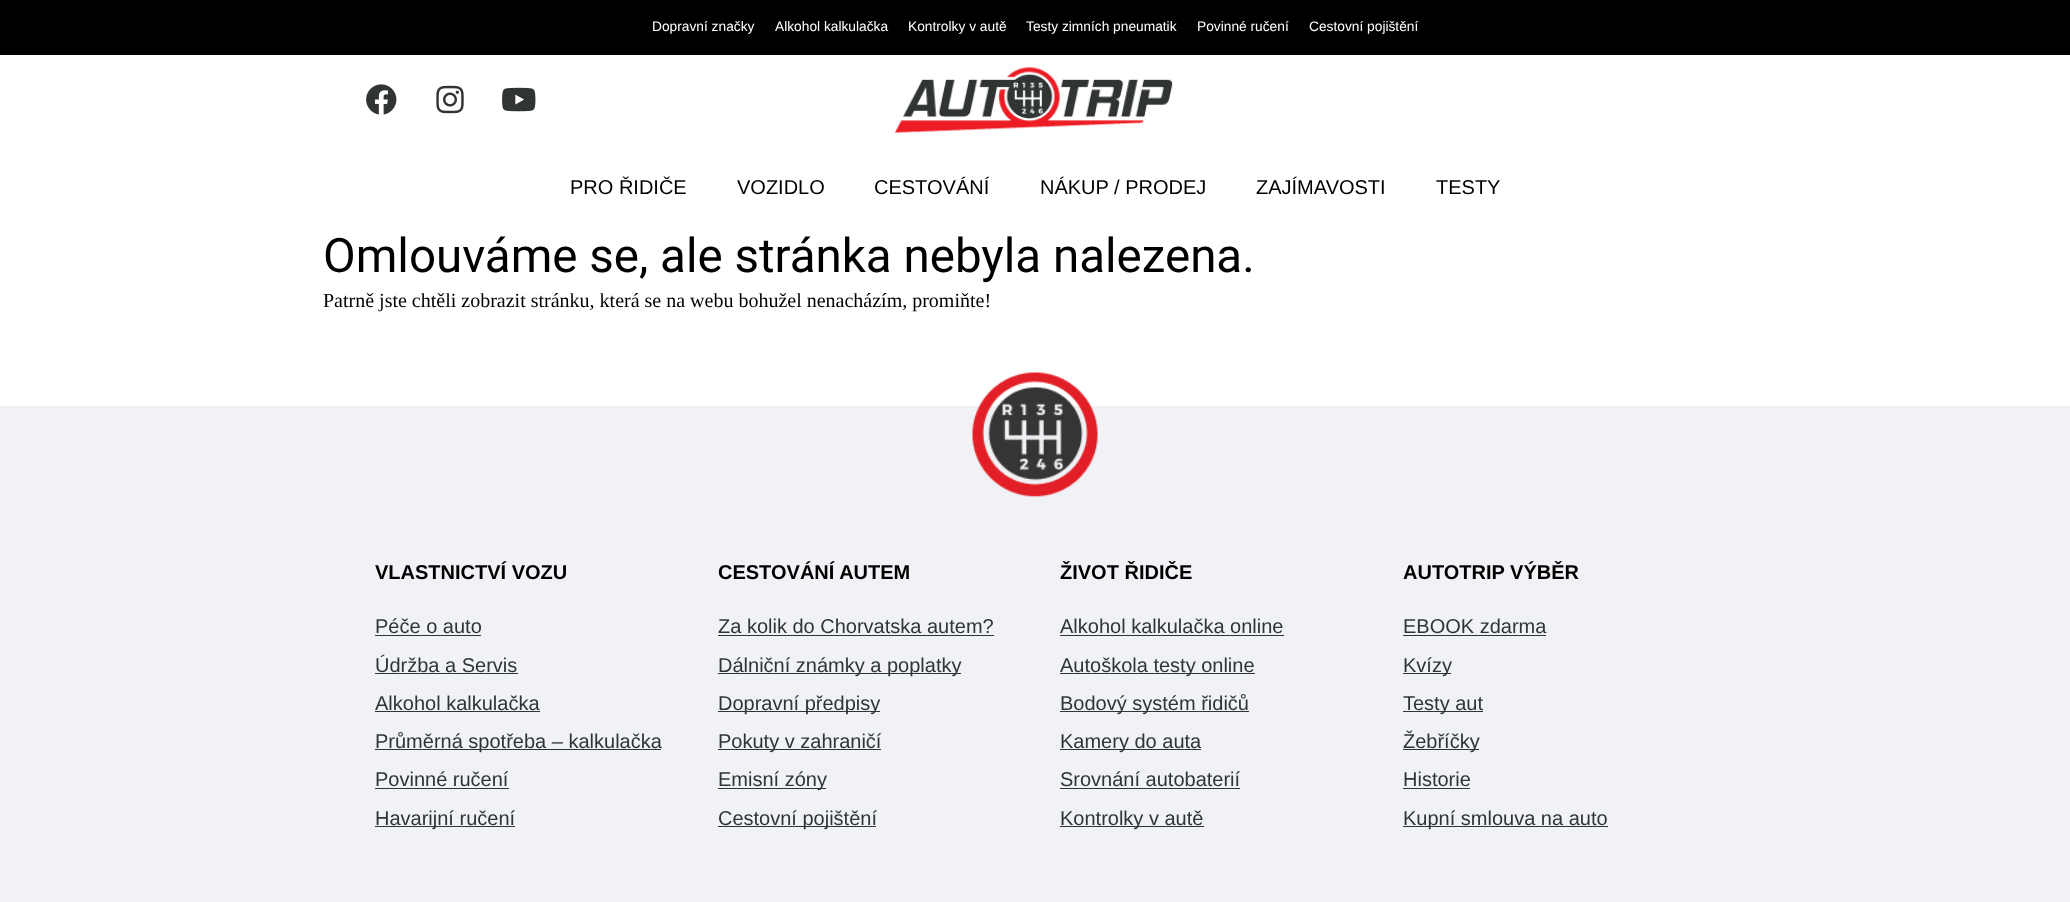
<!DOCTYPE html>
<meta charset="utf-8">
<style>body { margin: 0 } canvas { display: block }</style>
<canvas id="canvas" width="2070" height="902"></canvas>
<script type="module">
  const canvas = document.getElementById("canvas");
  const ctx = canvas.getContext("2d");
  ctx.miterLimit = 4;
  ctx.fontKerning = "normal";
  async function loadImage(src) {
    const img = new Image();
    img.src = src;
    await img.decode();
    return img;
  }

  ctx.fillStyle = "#ffffff";
  ctx.fillRect(0, 0, 2070, 902);
  ctx.fillStyle = "#000000";
  ctx.fillRect(0, 0, 2070, 55);
  ctx.font = "13.75px Liberation Sans";
  ctx.fillStyle = "#ffffff";
  ctx.fillText("Dopravní značky", 652, 31);
  ctx.fillText("Alkohol kalkulačka", 775, 31);
  ctx.fillText("Kontrolky v autě", 908, 31);
  ctx.fillText("Testy zimních pneumatik", 1026, 31);
  ctx.fillText("Povinné ručení", 1197, 31);
  ctx.fillText("Cestovní pojištění", 1309, 31);
  ctx.drawImage(await loadImage("img1.png"), 366, 84, 31, 31);
  ctx.drawImage(await loadImage("img2.png"), 436, 85, 28, 29);
  ctx.drawImage(await loadImage("img3.png"), 502, 87, 34, 25);
  ctx.drawImage(await loadImage("img4.png"), 895, 67, 278, 66);
  ctx.font = "20px Liberation Sans";
  ctx.fillStyle = "#000000";
  ctx.fillText("PRO ŘIDIČE", 570, 194);
  ctx.fillText("VOZIDLO", 737, 194);
  ctx.fillText("CESTOVÁNÍ", 874, 194);
  ctx.fillText("NÁKUP / PRODEJ", 1040, 194);
  ctx.fillText("ZAJÍMAVOSTI", 1256, 194);
  ctx.fillText("TESTY", 1436, 194);
  ctx.font = "47.5px Roboto";
  ctx.fillText("Omlouváme se, ale stránka nebyla nalezena.", 323, 272);
  ctx.font = "20px Liberation Serif";
  ctx.fillText("Patrně jste chtěli zobrazit stránku, která se na webu bohužel nenacházím, promiňte!", 323, 307);
  ctx.fillStyle = "#f0f2f5";
  ctx.fillRect(0, 406, 2070, 496);
  ctx.drawImage(await loadImage("img5.png"), 972, 372, 126, 125);
  ctx.font = "bold 20px Liberation Sans";
  ctx.fillStyle = "#000000";
  ctx.fillText("VLASTNICTVÍ VOZU", 375, 579);
  ctx.font = "20px Liberation Sans";
  ctx.fillStyle = "#303434";
  ctx.fillText("Péče o auto", 375, 633);
  ctx.fillRect(375, 635, 106, 1);
  ctx.fillText("Údržba a Servis", 375, 672);
  ctx.fillRect(375, 673, 143, 1);
  ctx.fillText("Alkohol kalkulačka", 375, 710);
  ctx.fillRect(375, 711, 165, 1);
  ctx.fillRect(375, 749, 286, 1);
  ctx.fillText("Průměrná spotřeba – kalkulačka", 375, 748);
  ctx.fillText("Povinné ručení", 375, 786);
  ctx.fillRect(375, 788, 134, 1);
  ctx.fillRect(375, 826, 140, 1);
  ctx.fillText("Havarijní ručení", 375, 825);
  ctx.font = "bold 20px Liberation Sans";
  ctx.fillStyle = "#000000";
  ctx.fillText("CESTOVÁNÍ AUTEM", 718, 579);
  ctx.font = "20px Liberation Sans";
  ctx.fillStyle = "#303434";
  ctx.fillText("Za kolik do Chorvatska autem?", 718, 633);
  ctx.fillRect(718, 635, 276, 1);
  ctx.fillRect(718, 673, 243, 1);
  ctx.fillText("Dálniční známky a poplatky", 718, 672);
  ctx.fillRect(718, 711, 162, 1);
  ctx.fillText("Dopravní předpisy", 718, 710);
  ctx.fillRect(718, 749, 163, 1);
  ctx.fillText("Pokuty v zahraničí", 718, 748);
  ctx.fillRect(718, 788, 108, 1);
  ctx.fillText("Emisní zóny", 718, 786);
  ctx.fillRect(718, 826, 158, 1);
  ctx.fillText("Cestovní pojištění", 718, 825);
  ctx.font = "bold 20px Liberation Sans";
  ctx.fillStyle = "#000000";
  ctx.fillText("ŽIVOT ŘIDIČE", 1060, 579);
  ctx.font = "20px Liberation Sans";
  ctx.fillStyle = "#303434";
  ctx.fillText("Alkohol kalkulačka online", 1060, 633);
  ctx.fillRect(1060, 635, 224, 1);
  ctx.fillRect(1060, 673, 195, 1);
  ctx.fillText("Autoškola testy online", 1060, 672);
  ctx.fillRect(1060, 711, 189, 1);
  ctx.fillText("Bodový systém řidičů", 1060, 710);
  ctx.fillRect(1060, 749, 141, 1);
  ctx.fillText("Kamery do auta", 1060, 748);
  ctx.fillText("Srovnání autobaterií", 1060, 786);
  ctx.fillRect(1060, 788, 180, 1);
  ctx.fillRect(1060, 826, 144, 1);
  ctx.fillText("Kontrolky v autě", 1060, 825);
  ctx.font = "bold 20px Liberation Sans";
  ctx.fillStyle = "#000000";
  ctx.fillText("AUTOTRIP VÝBĚR", 1403, 579);
  ctx.font = "20px Liberation Sans";
  ctx.fillStyle = "#303434";
  ctx.fillText("EBOOK zdarma", 1403, 633);
  ctx.fillRect(1403, 635, 143, 1);
  ctx.fillRect(1403, 673, 48, 1);
  ctx.fillText("Kvízy", 1403, 672);
  ctx.fillRect(1403, 711, 80, 1);
  ctx.fillText("Testy aut", 1403, 710);
  ctx.fillRect(1403, 749, 76, 1);
  ctx.fillText("Žebříčky", 1403, 748);
  ctx.fillText("Historie", 1403, 786);
  ctx.fillRect(1403, 788, 67, 1);
  ctx.fillRect(1403, 826, 205, 1);
  ctx.fillText("Kupní smlouva na auto", 1403, 825);
</script>
